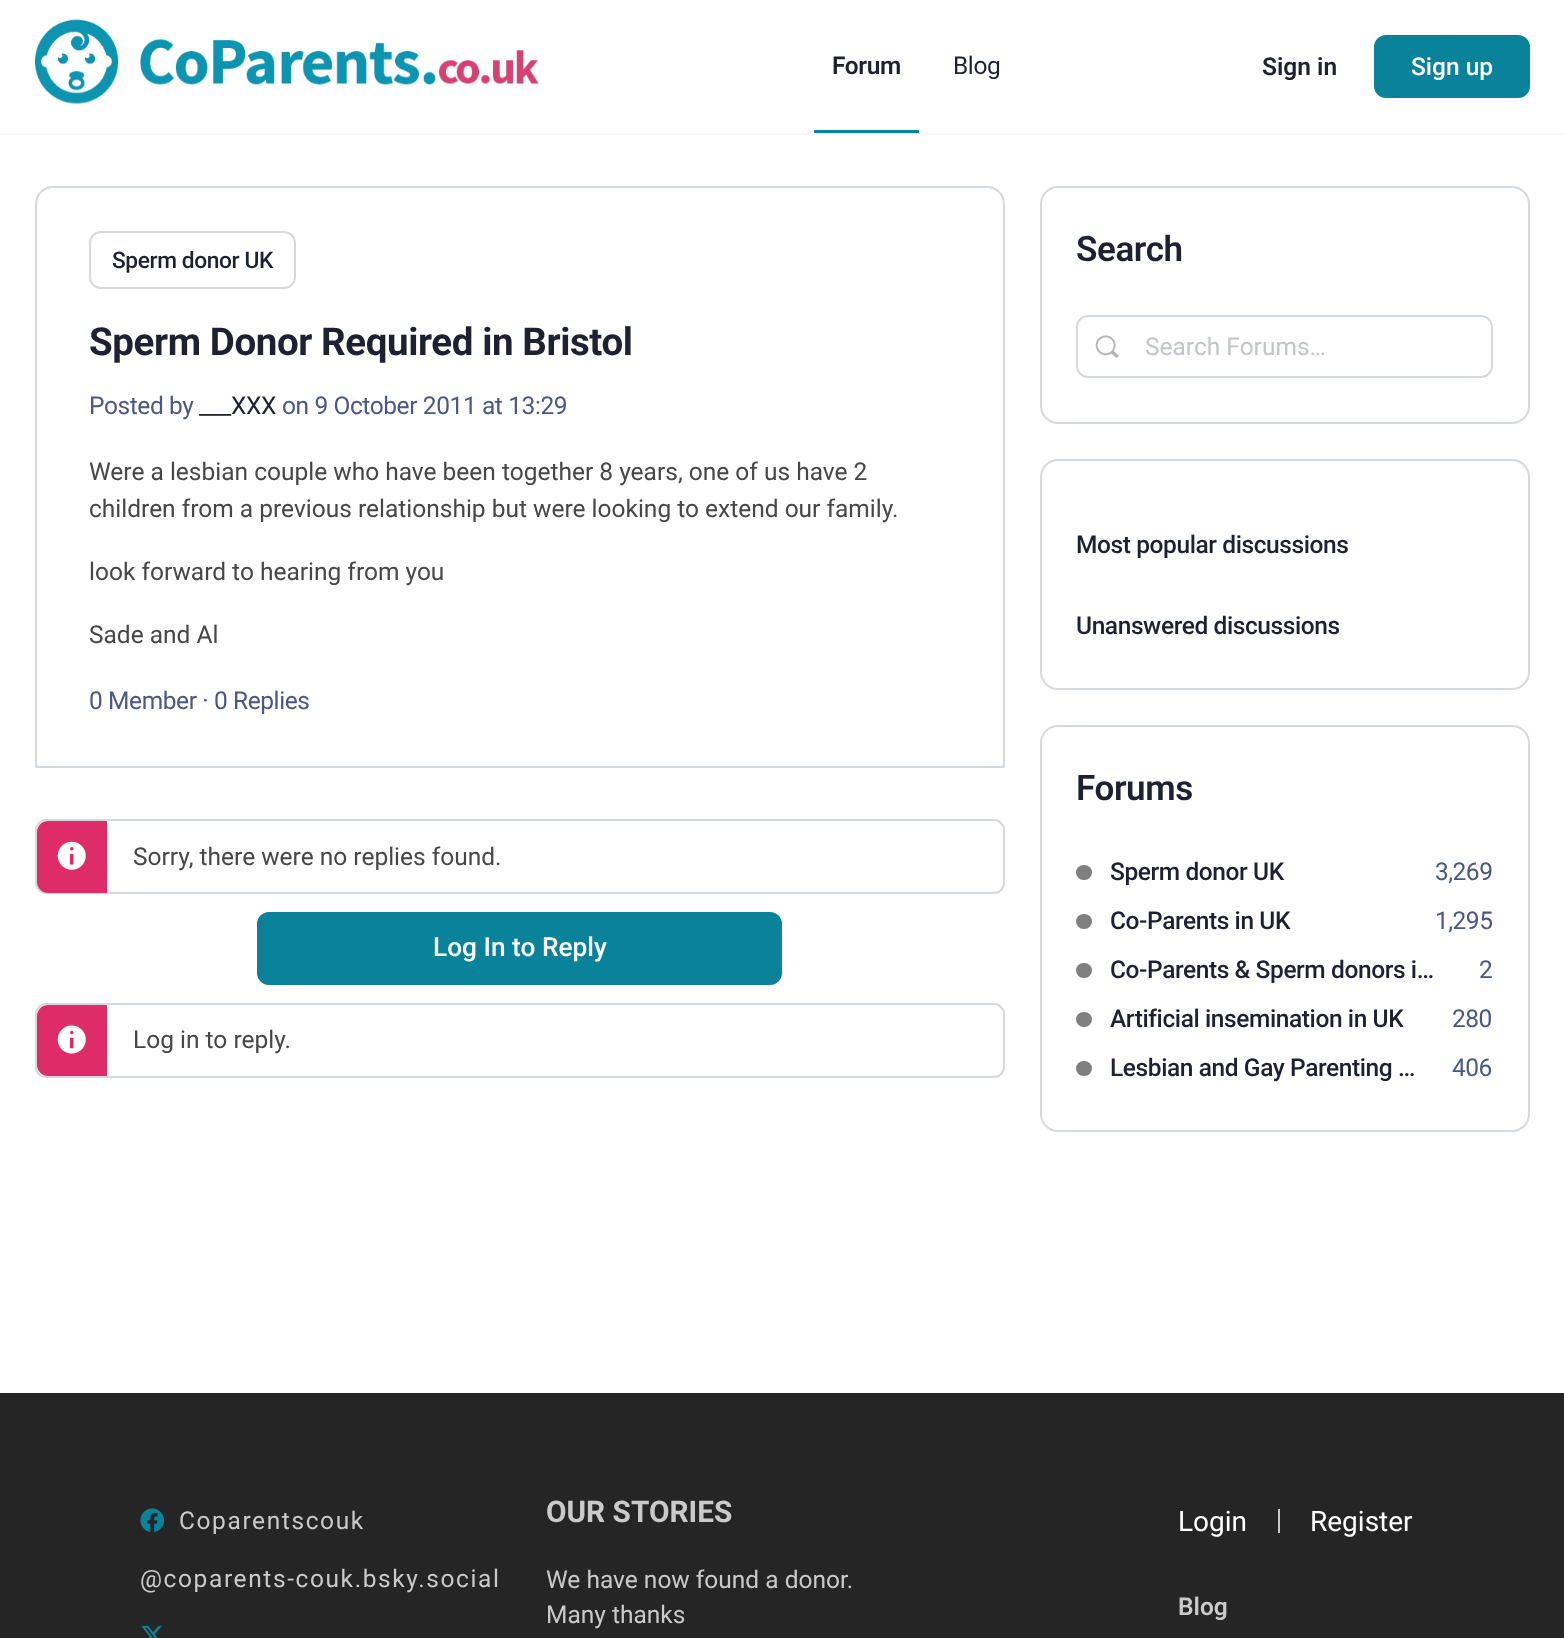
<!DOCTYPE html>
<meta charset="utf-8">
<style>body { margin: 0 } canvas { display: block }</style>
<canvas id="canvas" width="1564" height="1638"></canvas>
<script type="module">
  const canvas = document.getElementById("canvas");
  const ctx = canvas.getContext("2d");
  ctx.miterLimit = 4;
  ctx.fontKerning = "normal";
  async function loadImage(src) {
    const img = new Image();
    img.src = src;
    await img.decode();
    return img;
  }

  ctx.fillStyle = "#ffffff";
  ctx.fillRect(0, 0, 1564, 1638);
  ctx.fillStyle = "rgba(139, 141, 157, 0.05)";
  ctx.beginPath();
  ctx.moveTo(0, 133);
  ctx.lineTo(0, 135);
  ctx.lineTo(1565, 135);
  ctx.lineTo(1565, 2);
  ctx.lineTo(1564, 2);
  ctx.lineTo(1564, 133);
  ctx.closePath();
  ctx.fill();
  ctx.drawImage(await loadImage("img1.png"), 35, 18, 504, 86);
  ctx.fillStyle = "#0a8299";
  ctx.fillRect(814, 130, 105, 3);
  ctx.letterSpacing = "-0.4px";
  ctx.font = "600 24.5px Roboto";
  ctx.fillStyle = "#1e2132";
  ctx.fillText("Forum", 832, 74);
  ctx.font = "24.5px Roboto";
  ctx.fillText("Blog", 953, 74);
  ctx.letterSpacing = "0px";
  ctx.font = "600 24.5px Roboto";
  ctx.fillText("Sign in", 1262, 75);
  ctx.fillStyle = "#0a8299";
  ctx.beginPath();
  ctx.roundRect(1375, 36, 154, 61, 11);
  ctx.fill();
  ctx.strokeStyle = "#0a8299";
  ctx.lineWidth = 2;
  ctx.stroke();
  ctx.font = "500 24.5px Roboto";
  ctx.fillStyle = "#ffffff";
  ctx.fillText("Sign up", 1411, 75);
  ctx.beginPath();
  ctx.roundRect(36, 187, 968, 580, [17, 17, 0, 0]);
  ctx.strokeStyle = "#d6d9dd";
  ctx.stroke();
  ctx.beginPath();
  ctx.roundRect(90, 232, 205, 56, 11);
  ctx.stroke();
  ctx.letterSpacing = "-0.4px";
  ctx.font = "500 22.75px Roboto";
  ctx.fillStyle = "#1e2132";
  ctx.fillText("Sperm donor UK", 112, 268);
  ctx.font = "bold 38.5px Roboto";
  ctx.fillText("Sperm Donor Required in Bristol", 89, 355);
  ctx.font = "24.5px Roboto";
  ctx.fillStyle = "#4b5784";
  ctx.fillText("Posted by", 89, 414);
  ctx.fillStyle = "#1e2132";
  ctx.fillText("___XXX", 199, 414);
  ctx.fillStyle = "#4b5784";
  ctx.fillText("on 9 October 2011 at 13:29", 282, 414);
  ctx.letterSpacing = "0px";
  ctx.fillStyle = "#474747";
  ctx.fillText("Were a lesbian couple who have been together 8 years, one of us have 2", 89, 480);
  ctx.fillText("children from a previous relationship but were looking to extend our family.", 89, 517);
  ctx.fillText("look forward to hearing from you", 89, 580);
  ctx.fillText("Sade and Al", 89, 643);
  ctx.letterSpacing = "-0.4px";
  ctx.fillStyle = "#4b5784";
  ctx.fillText("0 Member · 0 Replies", 89, 709);
  ctx.beginPath();
  ctx.roundRect(36, 820, 968, 73, 10);
  ctx.stroke();
  ctx.fillStyle = "#de2c68";
  ctx.beginPath();
  ctx.roundRect(37, 821, 70, 72, [11, 0, 0, 11]);
  ctx.fill();
  ctx.drawImage(await loadImage("img2.png"), 57, 841, 29, 29);
  ctx.letterSpacing = "0px";
  ctx.fillStyle = "#474747";
  ctx.fillText("Sorry, there were no replies found.", 133, 865);
  ctx.fillStyle = "#0a8299";
  ctx.beginPath();
  ctx.roundRect(258, 913, 523, 71, 11);
  ctx.fill();
  ctx.strokeStyle = "#0a8299";
  ctx.stroke();
  ctx.font = "500 26.25px Roboto";
  ctx.fillStyle = "#ffffff";
  ctx.fillText("Log In to Reply", 433, 956);
  ctx.beginPath();
  ctx.roundRect(36, 1004, 968, 73, 10);
  ctx.strokeStyle = "#d6d9dd";
  ctx.stroke();
  ctx.fillStyle = "#de2c68";
  ctx.beginPath();
  ctx.roundRect(37, 1005, 70, 71, [11, 0, 0, 11]);
  ctx.fill();
  ctx.drawImage(await loadImage("img3.png"), 57, 1025, 29, 29);
  ctx.font = "24.5px Roboto";
  ctx.fillStyle = "#474747";
  ctx.fillText("Log in to reply.", 133, 1048);
  ctx.beginPath();
  ctx.roundRect(1041, 187, 488, 236, 17);
  ctx.stroke();
  ctx.letterSpacing = "-0.4px";
  ctx.font = "600 35px Roboto";
  ctx.fillStyle = "#1e2132";
  ctx.fillText("Search", 1076, 261);
  ctx.beginPath();
  ctx.roundRect(1077, 316, 415, 61, 11);
  ctx.stroke();
  ctx.drawImage(await loadImage("img4.png"), 1095, 335, 24, 23);
  ctx.letterSpacing = "0px";
  ctx.font = "24.5px Roboto";
  ctx.fillStyle = "#c3c6c9";
  ctx.fillText("Search Forums…", 1145, 355);
  ctx.beginPath();
  ctx.roundRect(1041, 460, 488, 229, 17);
  ctx.stroke();
  ctx.letterSpacing = "-0.4px";
  ctx.font = "500 24.5px Roboto";
  ctx.fillStyle = "#1e2132";
  ctx.fillText("Most popular discussions", 1076, 553);
  ctx.fillText("Unanswered discussions", 1076, 634);
  ctx.beginPath();
  ctx.roundRect(1041, 726, 488, 405, 17);
  ctx.stroke();
  ctx.font = "600 35px Roboto";
  ctx.fillText("Forums", 1076, 800);
  ctx.fillStyle = "#808080";
  ctx.beginPath();
  ctx.roundRect(1076, 865, 16, 15, 7.5);
  ctx.fill();
  ctx.font = "500 24.5px Roboto";
  ctx.fillStyle = "#1e2132";
  ctx.fillText("Sperm donor UK", 1110, 880);
  ctx.letterSpacing = "-0.5px";
  ctx.font = "24.5px Roboto";
  ctx.fillStyle = "#4b5784";
  ctx.fillText("3,269", 1435, 880);
  ctx.fillStyle = "#808080";
  ctx.beginPath();
  ctx.roundRect(1076, 914, 16, 15, 7.5);
  ctx.fill();
  ctx.letterSpacing = "-0.4px";
  ctx.font = "500 24.5px Roboto";
  ctx.fillStyle = "#1e2132";
  ctx.fillText("Co-Parents in UK", 1110, 929);
  ctx.letterSpacing = "-0.5px";
  ctx.font = "24.5px Roboto";
  ctx.fillStyle = "#4b5784";
  ctx.fillText("1,295", 1435, 929);
  ctx.fillStyle = "#808080";
  ctx.beginPath();
  ctx.roundRect(1076, 963, 16, 15, 7.5);
  ctx.fill();
  ctx.letterSpacing = "-0.4px";
  ctx.font = "500 24.5px Roboto";
  ctx.fillStyle = "#1e2132";
  ctx.fillText("Co-Parents & Sperm donors i…", 1110, 978);
  ctx.letterSpacing = "-0.5px";
  ctx.font = "24.5px Roboto";
  ctx.fillStyle = "#4b5784";
  ctx.fillText("2", 1479, 978);
  ctx.fillStyle = "#808080";
  ctx.beginPath();
  ctx.roundRect(1076, 1012, 16, 15, 7.5);
  ctx.fill();
  ctx.letterSpacing = "-0.4px";
  ctx.font = "500 24.5px Roboto";
  ctx.fillStyle = "#1e2132";
  ctx.fillText("Artificial insemination in UK", 1110, 1027);
  ctx.letterSpacing = "-0.5px";
  ctx.font = "24.5px Roboto";
  ctx.fillStyle = "#4b5784";
  ctx.fillText("280", 1452, 1027);
  ctx.fillStyle = "#808080";
  ctx.beginPath();
  ctx.roundRect(1076, 1061, 16, 15, 7.5);
  ctx.fill();
  ctx.letterSpacing = "-0.4px";
  ctx.font = "500 24.5px Roboto";
  ctx.fillStyle = "#1e2132";
  ctx.fillText("Lesbian and Gay Parenting …", 1110, 1076);
  ctx.letterSpacing = "-0.5px";
  ctx.font = "24.5px Roboto";
  ctx.fillStyle = "#4b5784";
  ctx.fillText("406", 1452, 1076);
  ctx.fillStyle = "#252525";
  ctx.fillRect(0, 1393, 1564, 245);
  ctx.drawImage(await loadImage("img5.png"), 140, 1508, 25, 24);
  ctx.letterSpacing = "1.6px";
  ctx.fillStyle = "#cacaca";
  ctx.fillText("Coparentscouk", 179, 1529);
  ctx.fillText("@coparents-couk.bsky.social", 140, 1587);
  ctx.drawImage(await loadImage("img6.png"), 141, 1625, 21, 13);
  ctx.letterSpacing = "0px";
  ctx.font = "bold 29.75px Roboto";
  ctx.fillText("OUR STORIES", 546, 1522);
  ctx.font = "24.5px Roboto";
  ctx.fillText("We have now found a donor.", 546, 1588);
  ctx.fillText("Many thanks", 546, 1623);
  ctx.font = "28px Roboto";
  ctx.fillStyle = "#ffffff";
  ctx.fillText("Login", 1178, 1531);
  ctx.fillStyle = "#cacaca";
  ctx.fillRect(1278, 1509, 2, 24);
  ctx.fillStyle = "#ffffff";
  ctx.fillText("Register", 1310, 1531);
  ctx.font = "600 24.5px Roboto";
  ctx.fillStyle = "#cacaca";
  ctx.fillText("Blog", 1178, 1615);
</script>
